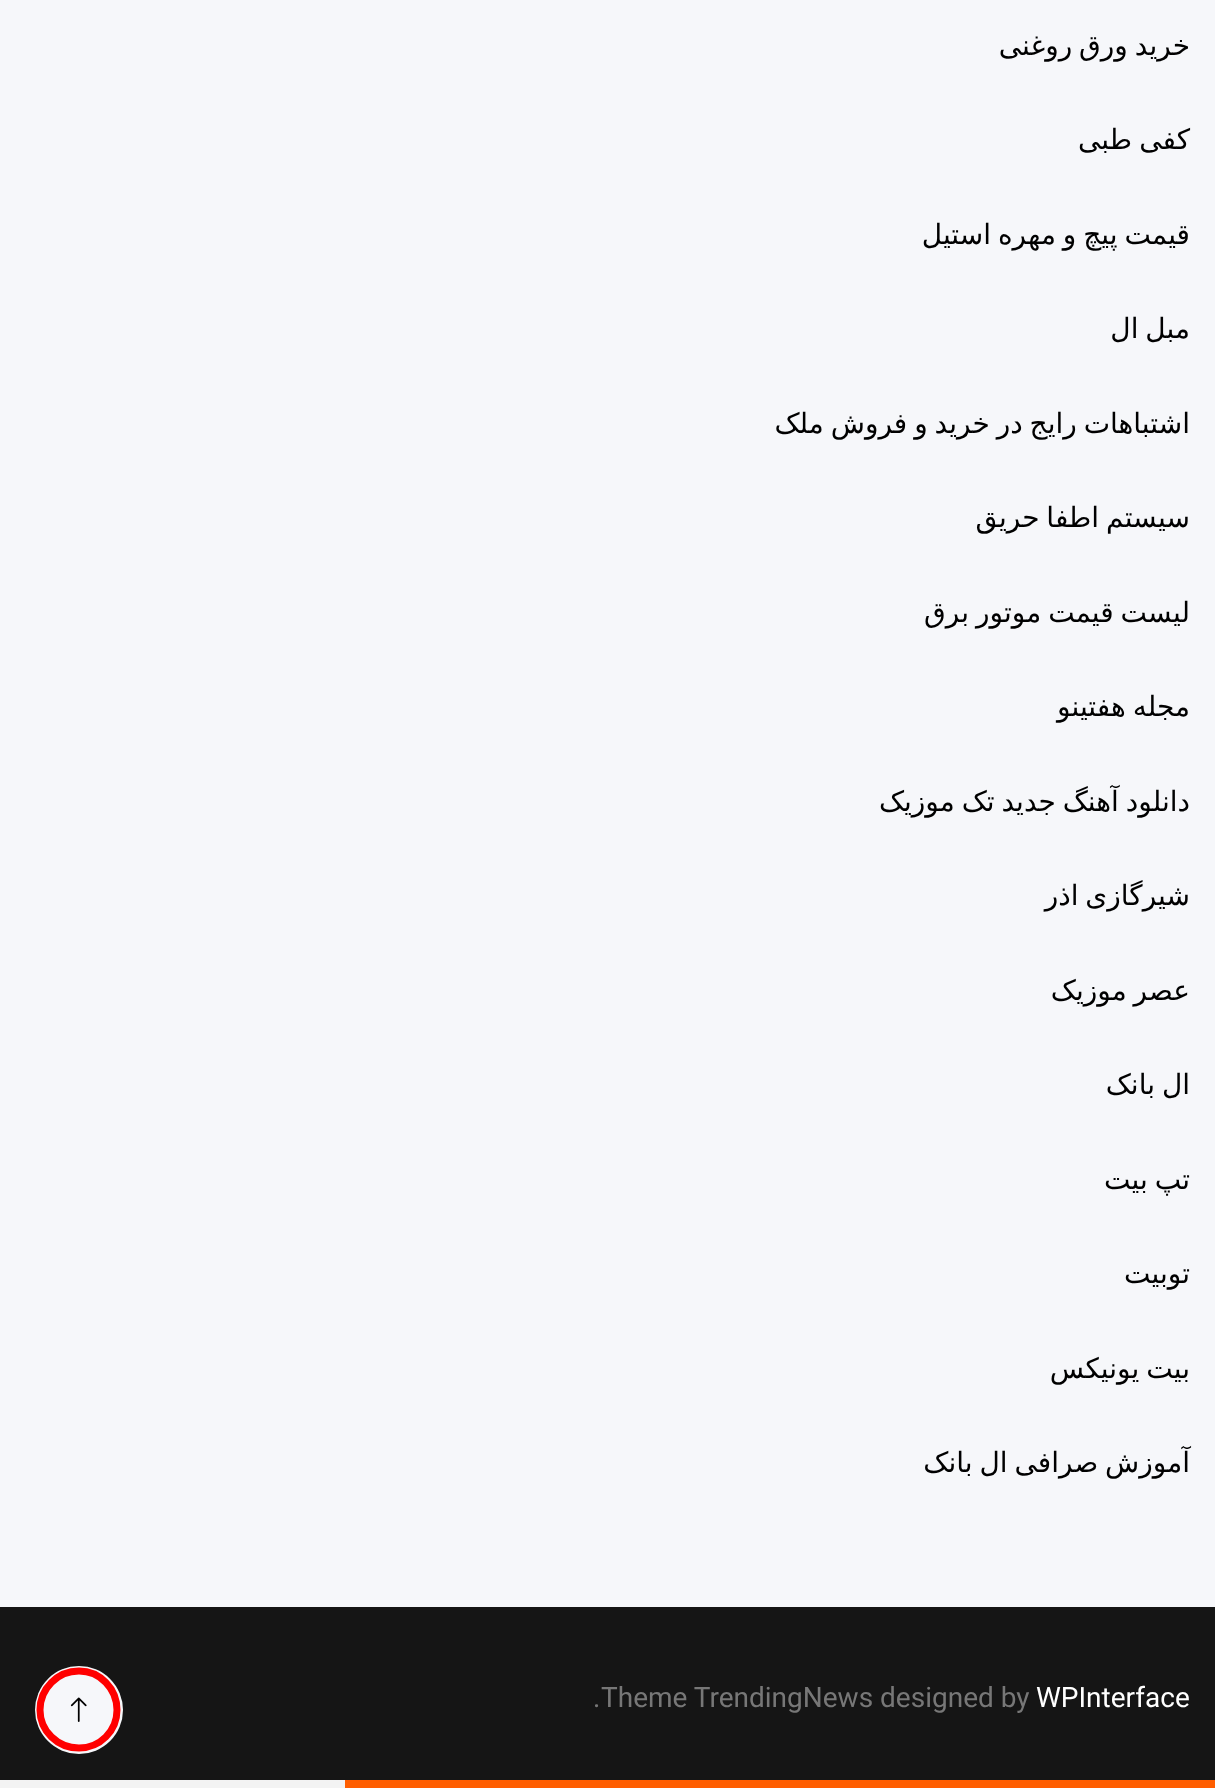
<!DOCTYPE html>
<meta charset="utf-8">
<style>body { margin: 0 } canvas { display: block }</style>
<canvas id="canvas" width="1215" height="1788"></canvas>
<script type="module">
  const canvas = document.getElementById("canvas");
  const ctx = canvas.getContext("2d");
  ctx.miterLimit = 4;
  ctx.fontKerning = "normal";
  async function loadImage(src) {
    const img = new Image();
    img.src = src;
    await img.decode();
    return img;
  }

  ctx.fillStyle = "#f6f7fa";
  ctx.fillRect(0, 0, 1215, 1788);
  ctx.wordSpacing = "-2px";
  ctx.direction = "rtl";
  ctx.font = "28px DejaVu Sans";
  ctx.fillStyle = "#000000";
  ctx.fillText("خرید ورق روغنی", 1190, 55);
  ctx.wordSpacing = "0px";
  ctx.fillText("کفی", 1190, 149);
  ctx.fillText("طبی", 1132, 149);
  ctx.wordSpacing = "-2px";
  ctx.fillText("قیمت پیچ و مهره استیل", 1190, 244);
  ctx.fillText("مبل ال", 1190, 338);
  ctx.fillText("اشتباهات رایج در خرید و فروش ملک", 1190, 433);
  ctx.fillText("سیستم اطفا حریق", 1190, 527);
  ctx.fillText("لیست قیمت موتور برق", 1190, 622);
  ctx.fillText("مجله هفتینو", 1190, 716);
  ctx.fillText("دانلود آهنگ جدید تک موزیک", 1190, 811);
  ctx.fillText("شیرگازی اذر", 1190, 905);
  ctx.fillText("عصر موزیک", 1190, 1000);
  ctx.fillText("ال بانک", 1190, 1094);
  ctx.fillText("تپ بیت", 1190, 1189);
  ctx.wordSpacing = "0px";
  ctx.fillText("توبیت", 1190, 1283);
  ctx.wordSpacing = "-2px";
  ctx.fillText("بیت یونیکس", 1190, 1378);
  ctx.fillText("آموزش صرافی ال بانک", 1190, 1472);
  ctx.fillStyle = "#151515";
  ctx.fillRect(0, 1607, 1215, 173);
  ctx.wordSpacing = "0px";
  ctx.direction = "ltr";
  ctx.font = "28px Roboto";
  ctx.fillStyle = "#ffffff";
  ctx.fillText("WPInterface", 1036, 1707);
  ctx.fillStyle = "#777777";
  ctx.fillText("Theme TrendingNews designed by", 601, 1707);
  ctx.fillText(".", 593, 1707);
  ctx.fillStyle = "#f6f7fa";
  ctx.beginPath();
  ctx.arc(79, 1710, 44, 0, Math.PI * 2);
  ctx.fill();
  ctx.drawImage(await loadImage("img1.png"), 70, 1697, 17, 25);
  ctx.beginPath();
  ctx.moveTo(117, 1710);
  ctx.bezierCurveTo(117, 1731, 100, 1748, 79, 1748);
  ctx.bezierCurveTo(57.5, 1748, 40, 1731, 40, 1710);
  ctx.bezierCurveTo(40, 1688.5, 57.5, 1671, 79, 1671);
  ctx.bezierCurveTo(100, 1671, 117, 1688.5, 117, 1710);
  ctx.strokeStyle = "#ff0000";
  ctx.lineWidth = 7;
  ctx.stroke();
  ctx.fillStyle = "#f3f3f3";
  ctx.fillRect(0, 1780, 345, 8);
  ctx.fillStyle = "#ff5e00";
  ctx.fillRect(345, 1780, 870, 8);
</script>
